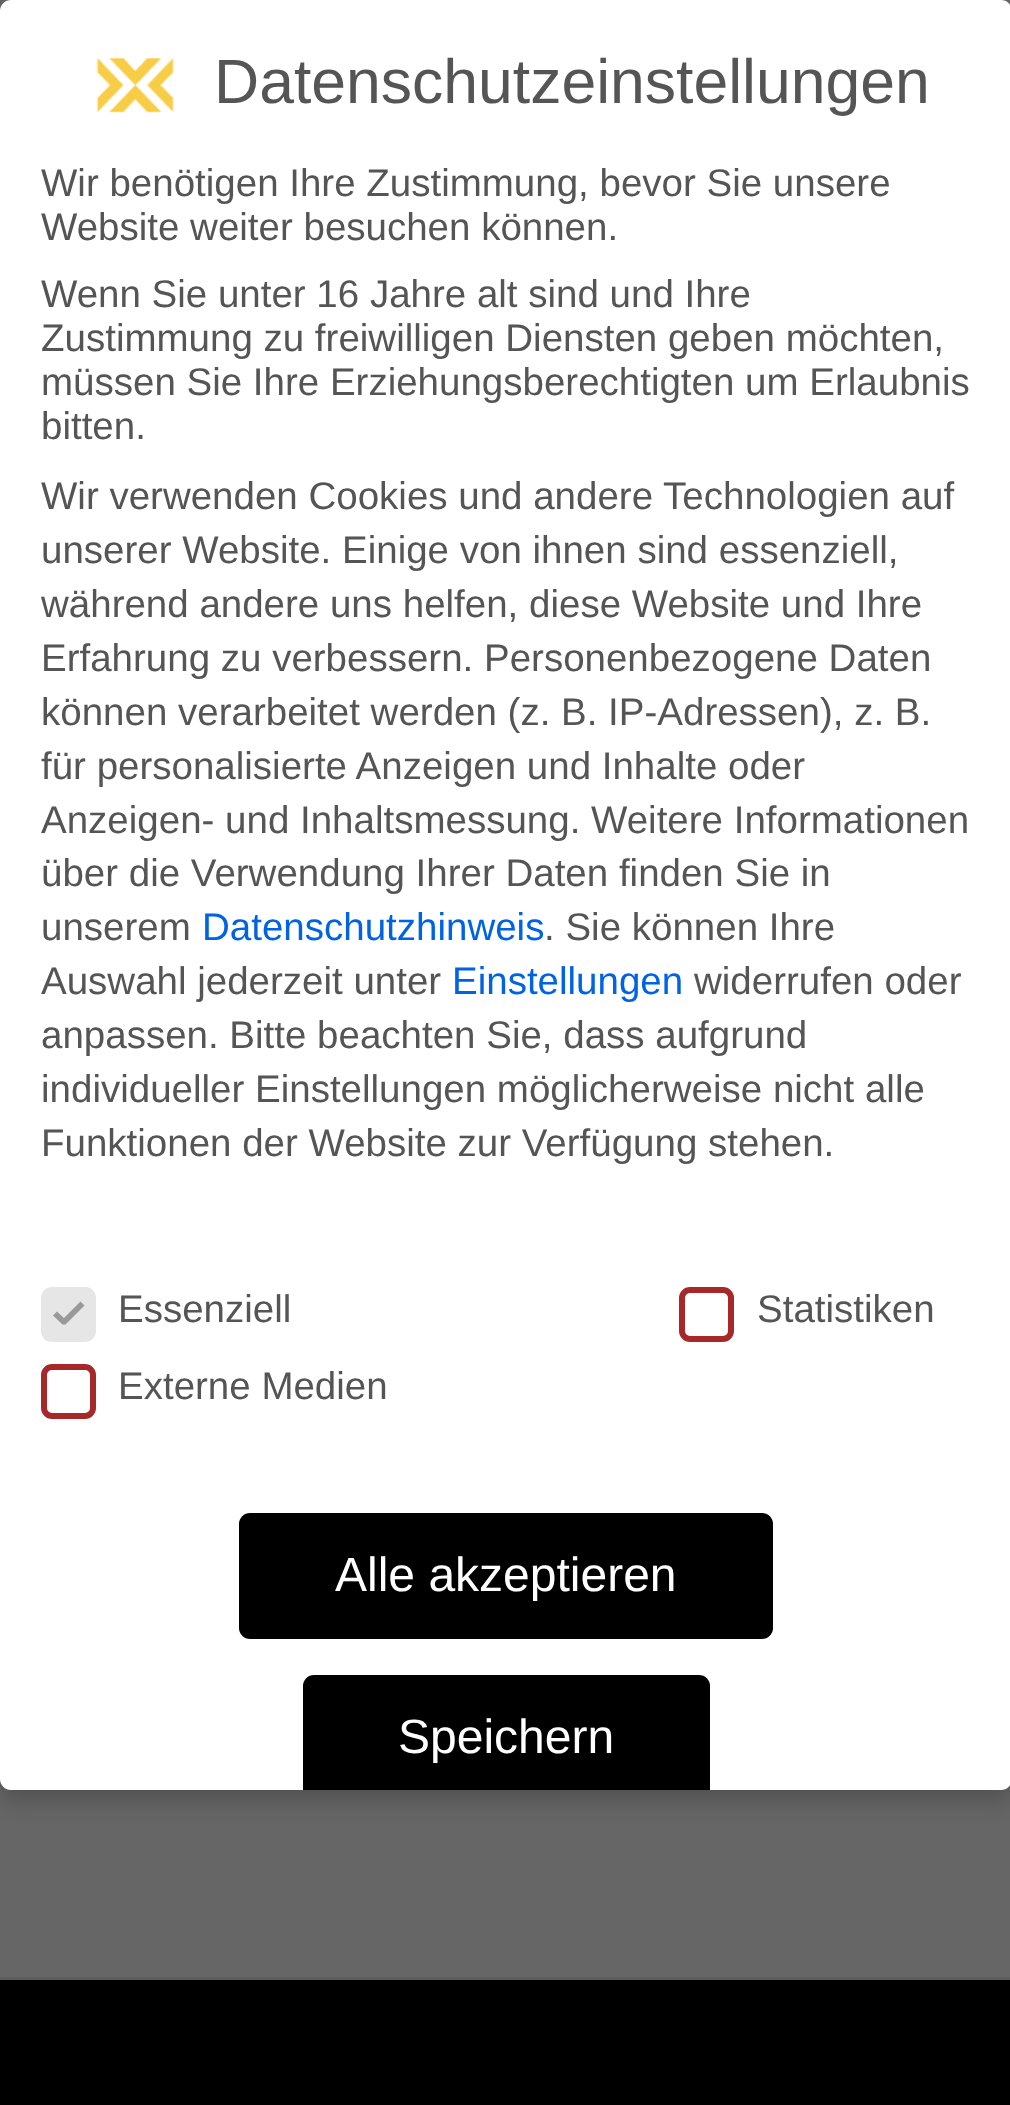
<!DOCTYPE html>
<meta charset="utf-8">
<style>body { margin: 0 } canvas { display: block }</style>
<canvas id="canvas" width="1010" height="2105"></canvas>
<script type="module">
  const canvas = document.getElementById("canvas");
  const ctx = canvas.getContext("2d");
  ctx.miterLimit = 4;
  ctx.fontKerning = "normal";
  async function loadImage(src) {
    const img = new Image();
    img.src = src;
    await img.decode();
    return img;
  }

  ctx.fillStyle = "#666666";
  ctx.fillRect(0, 0, 1010, 2105);
  ctx.fillStyle = "rgba(0, 0, 0, 0.2)";
  ctx.filter = "blur(11px)";
  ctx.beginPath();
  ctx.roundRect(0, 11, 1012, 1790, 11);
  ctx.fill();
  ctx.filter = "none";
  ctx.fillStyle = "#ffffff";
  ctx.beginPath();
  ctx.roundRect(0, 0, 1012, 1790, 11);
  ctx.fill();
  ctx.drawImage(await loadImage("img1.png"), 96, 58, 78, 55);
  ctx.font = "62.5px Liberation Sans";
  ctx.fillStyle = "#555555";
  ctx.fillText("Datenschutzeinstellungen", 214, 103);
  ctx.font = "38.5px Liberation Sans";
  ctx.fillText("Wir benötigen Ihre Zustimmung, bevor Sie unsere", 41, 196);
  ctx.fillText("Website weiter besuchen können.", 41, 240);
  ctx.fillText("Wenn Sie unter 16 Jahre alt sind und Ihre", 41, 307);
  ctx.fillText("Zustimmung zu freiwilligen Diensten geben möchten,", 41, 351);
  ctx.fillText("müssen Sie Ihre Erziehungsberechtigten um Erlaubnis", 41, 395);
  ctx.fillText("bitten.", 41, 439);
  ctx.fillText("Wir verwenden Cookies und andere Technologien auf", 41, 509);
  ctx.fillText("unserer Website. Einige von ihnen sind essenziell,", 41, 563);
  ctx.fillText("während andere uns helfen, diese Website und Ihre", 41, 617);
  ctx.fillText("Erfahrung zu verbessern. Personenbezogene Daten", 41, 671);
  ctx.fillText("können verarbeitet werden (z. B. IP-Adressen), z. B.", 41, 725);
  ctx.fillText("für personalisierte Anzeigen und Inhalte oder", 41, 779);
  ctx.fillText("Anzeigen- und Inhaltsmessung. Weitere Informationen", 41, 833);
  ctx.fillText("über die Verwendung Ihrer Daten finden Sie in", 41, 886);
  ctx.fillText("unserem", 41, 940);
  ctx.fillStyle = "#0063e3";
  ctx.fillText("Datenschutzhinweis", 202, 940);
  ctx.fillStyle = "#555555";
  ctx.fillText(". Sie können Ihre", 544, 940);
  ctx.fillText("Auswahl jederzeit unter", 41, 994);
  ctx.fillStyle = "#0063e3";
  ctx.fillText("Einstellungen", 452, 994);
  ctx.fillStyle = "#555555";
  ctx.fillText("widerrufen oder", 694, 994);
  ctx.fillText("anpassen. Bitte beachten Sie, dass aufgrund", 41, 1048);
  ctx.fillText("individueller Einstellungen möglicherweise nicht alle", 41, 1102);
  ctx.fillText("Funktionen der Website zur Verfügung stehen.", 41, 1156);
  ctx.fillStyle = "#e6e6e6";
  ctx.beginPath();
  ctx.roundRect(44, 1290, 49, 49, 8);
  ctx.fill();
  ctx.strokeStyle = "#e6e6e6";
  ctx.lineWidth = 6;
  ctx.stroke();
  ctx.fillStyle = "#999999";
  ctx.beginPath();
  ctx.moveTo(80.5, 1301.5);
  ctx.lineTo(84.5, 1305.5);
  ctx.lineTo(65, 1325);
  ctx.lineTo(61, 1321);
  ctx.closePath();
  ctx.fill();
  ctx.beginPath();
  ctx.moveTo(57, 1311.5);
  ctx.lineTo(67, 1321);
  ctx.lineTo(63, 1325);
  ctx.lineTo(53, 1315.5);
  ctx.closePath();
  ctx.fill();
  ctx.fillStyle = "#555555";
  ctx.fillText("Essenziell", 118, 1322);
  ctx.beginPath();
  ctx.roundRect(682, 1290, 49, 49, 8);
  ctx.strokeStyle = "#a72828";
  ctx.stroke();
  ctx.fillText("Statistiken", 757, 1322);
  ctx.beginPath();
  ctx.roundRect(44, 1367, 49, 49, 8);
  ctx.stroke();
  ctx.fillText("Externe Medien", 118, 1399);
  ctx.fillStyle = "#000000";
  ctx.beginPath();
  ctx.roundRect(239, 1513, 534, 126, 11);
  ctx.fill();
  ctx.font = "48px Liberation Sans";
  ctx.fillStyle = "#ffffff";
  ctx.fillText("Alle akzeptieren", 335, 1591);
  ctx.fillStyle = "#000000";
  ctx.beginPath();
  ctx.roundRect(303, 1675, 407, 115, [11, 11, 0, 0]);
  ctx.fill();
  ctx.fillStyle = "#ffffff";
  ctx.fillText("Speichern", 398, 1753);
  ctx.fillStyle = "#000000";
  ctx.fillRect(0, 1980, 1010, 125);
  ctx.fillStyle = "#5c5c5c";
  ctx.fillRect(0, 1977, 1010, 3);
</script>
